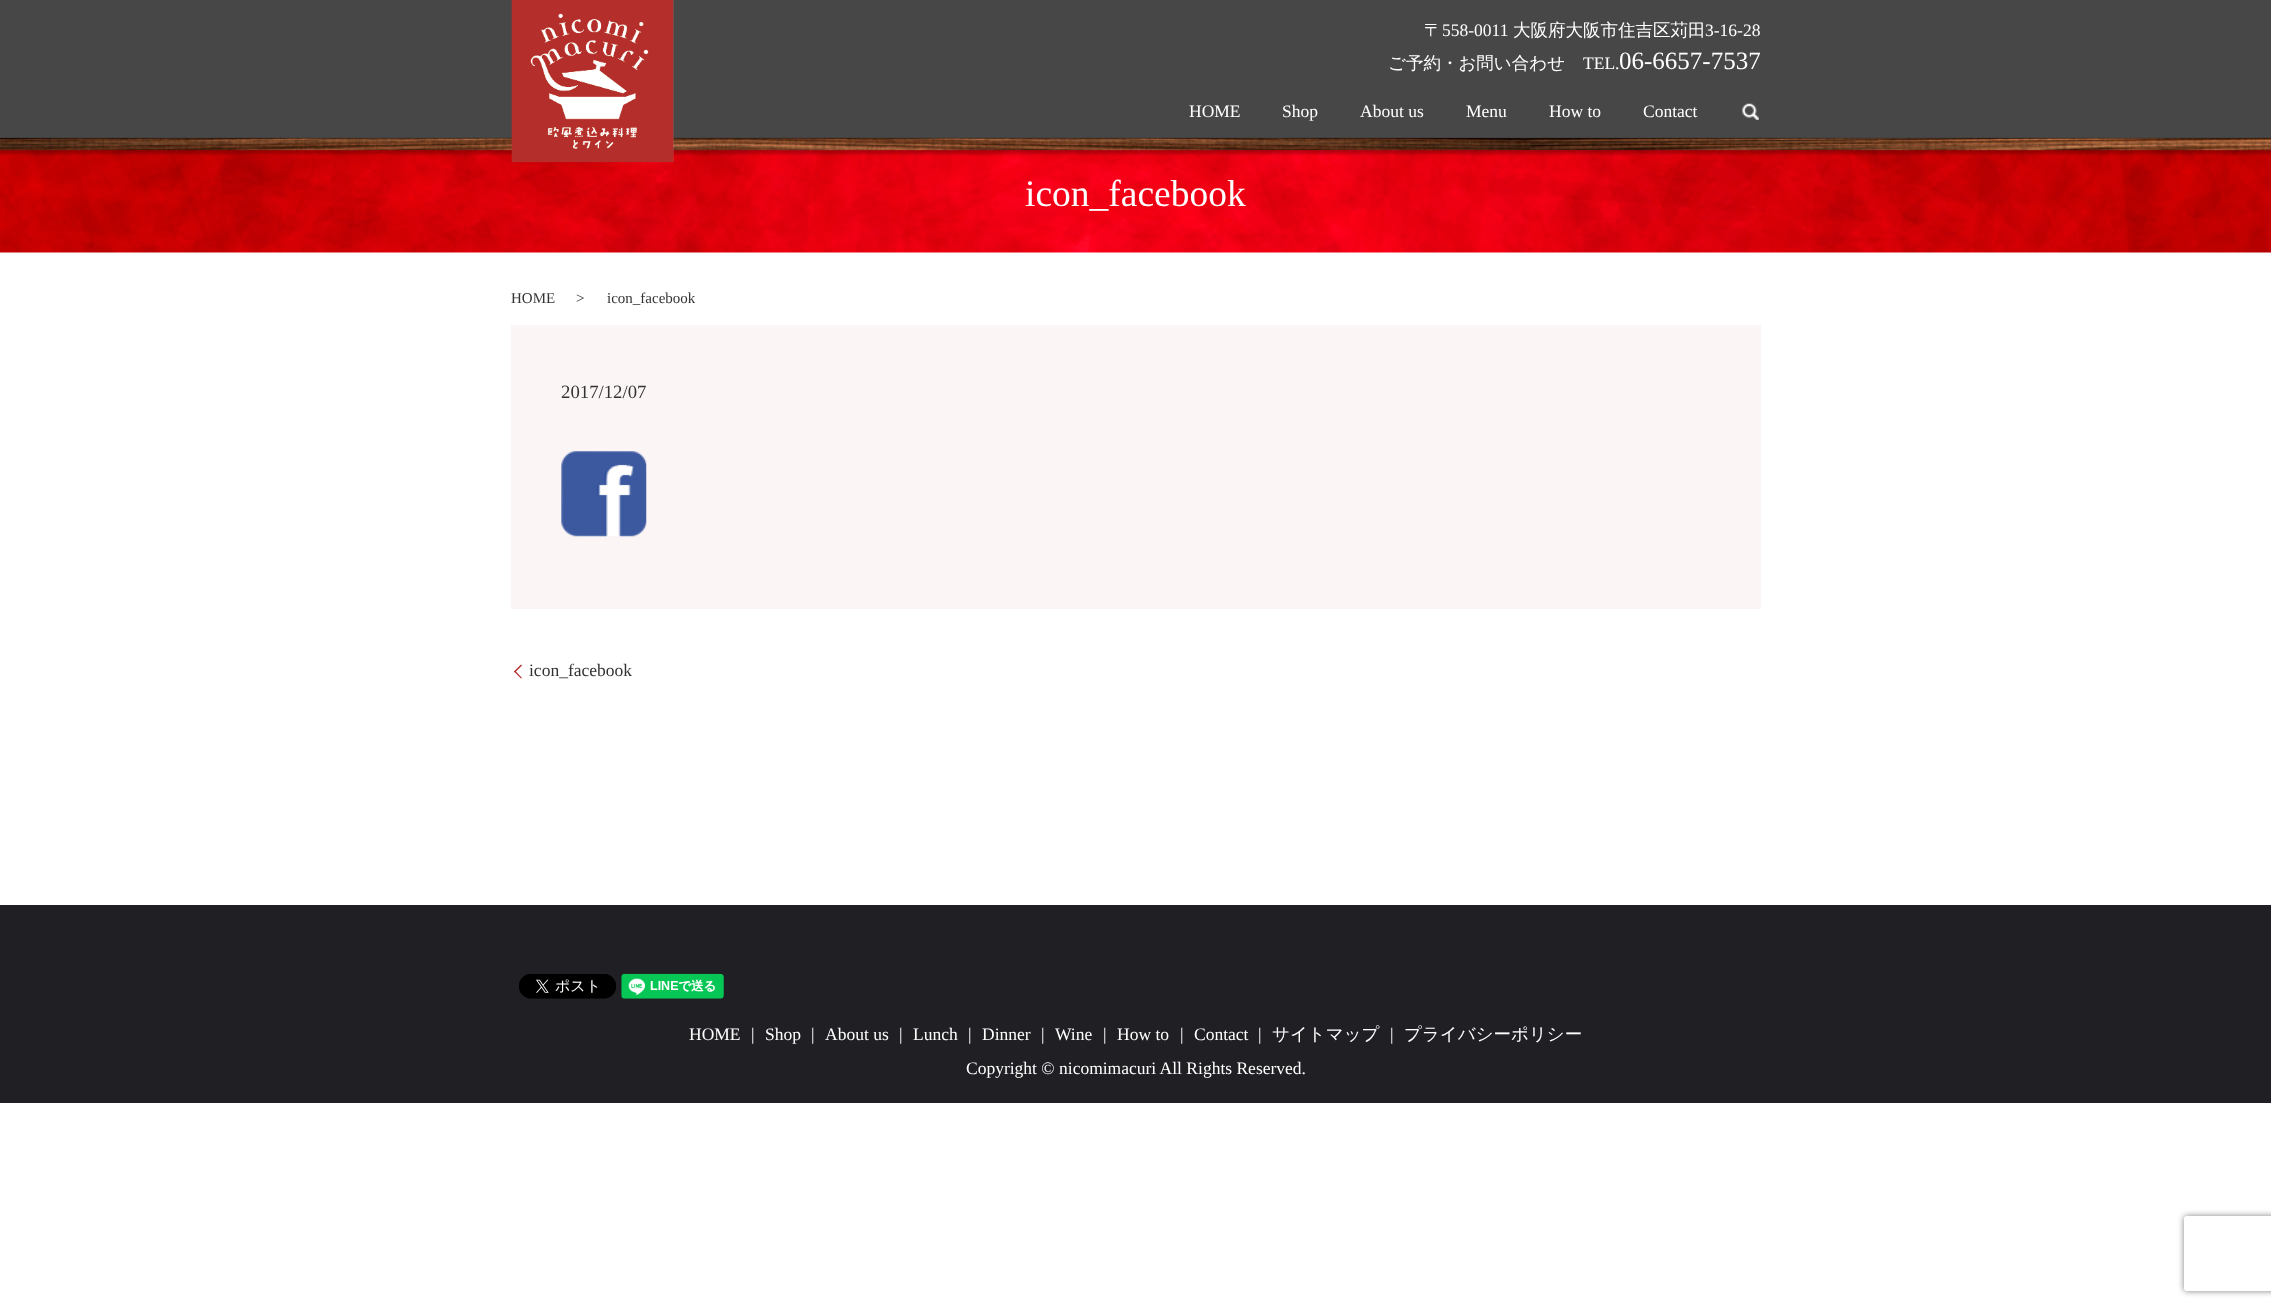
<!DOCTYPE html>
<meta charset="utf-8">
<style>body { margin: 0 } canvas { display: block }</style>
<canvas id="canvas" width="2271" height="1308"></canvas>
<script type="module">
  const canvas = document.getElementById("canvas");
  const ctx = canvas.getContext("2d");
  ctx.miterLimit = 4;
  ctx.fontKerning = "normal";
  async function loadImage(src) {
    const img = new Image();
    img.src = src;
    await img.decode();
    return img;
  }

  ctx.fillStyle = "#ffffff";
  ctx.fillRect(0, 0, 2271, 1308);
  ctx.drawImage(await loadImage("img3.png"), 0, 137, 2271, 116);
  ctx.save();
  ctx.beginPath();
  ctx.moveTo(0, 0);
  ctx.lineTo(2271, 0);
  ctx.lineTo(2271, 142);
  ctx.lineTo(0, 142);
  ctx.closePath();
  ctx.moveTo(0, 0);
  ctx.lineTo(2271, 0);
  ctx.lineTo(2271, 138);
  ctx.lineTo(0, 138);
  ctx.closePath();
  ctx.clip("evenodd");
  ctx.fillStyle = "rgba(0, 0, 0, 0.1)";
  ctx.filter = "blur(0.5px)";
  ctx.beginPath();
  ctx.rect(0, 1, 2271, 138);
  ctx.fill();
  ctx.filter = "none";
  ctx.restore();
  ctx.fillStyle = "rgba(51, 51, 51, 0.9)";
  ctx.fillRect(0, 0, 2271, 138);
  ctx.drawImage(await loadImage("img1.png"), 511, 0, 163, 163);
  ctx.font = "500 17.5px WenQuanYi Zen Hei";
  ctx.fillStyle = "#ffffff";
  ctx.fillText("〒", 1424, 36);
  ctx.font = "17.5px Liberation Serif";
  ctx.fillText("558-0011", 1442, 36);
  ctx.font = "500 17.5px WenQuanYi Zen Hei";
  ctx.fillText("大阪府大阪市住吉区苅田", 1513, 36);
  ctx.font = "17.5px Liberation Serif";
  ctx.fillText("3-16-28", 1705, 36);
  ctx.font = "500 17.5px WenQuanYi Zen Hei";
  ctx.fillText("ご予約・お問い合わせ", 1388, 69);
  ctx.font = "17.5px Liberation Serif";
  ctx.fillText("TEL.", 1583, 69);
  ctx.font = "25px Liberation Serif";
  ctx.fillText("06-6657-7537", 1619, 69);
  ctx.font = "17.5px Liberation Serif";
  ctx.fillText("HOME", 1189, 117);
  ctx.fillText("Shop", 1282, 117);
  ctx.fillText("About us", 1360, 117);
  ctx.fillText("Menu", 1466, 117);
  ctx.fillText("How to", 1549, 117);
  ctx.fillText("Contact", 1643, 117);
  ctx.drawImage(await loadImage("img2.png"), 1742, 103, 17, 17);
  ctx.font = "37.5px Liberation Serif";
  ctx.fillText("icon_facebook", 1025, 206);
  ctx.font = "15px Liberation Serif";
  ctx.fillStyle = "#333333";
  ctx.fillText("HOME", 511, 303);
  ctx.fillText(">", 576, 303);
  ctx.fillText("icon_facebook", 607, 303);
  ctx.fillStyle = "#fcf5f5";
  ctx.fillRect(511, 325, 1250, 284);
  ctx.font = "18.75px Liberation Serif";
  ctx.fillStyle = "#333333";
  ctx.fillText("2017/12/07", 561, 398);
  ctx.drawImage(await loadImage("img4.png"), 561, 451, 86, 86);
  ctx.fillStyle = "#b42e2b";
  ctx.beginPath();
  ctx.moveTo(514, 671.5);
  ctx.lineTo(521, 664.5);
  ctx.lineTo(522, 665.5);
  ctx.lineTo(515, 672.5);
  ctx.closePath();
  ctx.fill();
  ctx.font = "17.5px Liberation Serif";
  ctx.fillStyle = "#333333";
  ctx.fillText("icon_facebook", 529, 676);
  ctx.fillStyle = "#b42e2b";
  ctx.beginPath();
  ctx.moveTo(521, 678.5);
  ctx.lineTo(514, 671.5);
  ctx.lineTo(515, 670.5);
  ctx.lineTo(522, 678);
  ctx.closePath();
  ctx.fill();
  ctx.fillStyle = "#1f1f24";
  ctx.fillRect(0, 905, 2271, 198);
  ctx.drawImage(await loadImage("img5.png"), 519, 974, 97, 25);
  ctx.drawImage(await loadImage("img6.png"), 621, 973, 103, 26);
  ctx.fillStyle = "#ffffff";
  ctx.fillText("HOME", 689, 1040);
  ctx.fillText("|", 751, 1040);
  ctx.fillText("Shop", 765, 1040);
  ctx.fillText("|", 811, 1040);
  ctx.fillText("About us", 825, 1040);
  ctx.fillText("|", 899, 1040);
  ctx.fillText("Lunch", 913, 1040);
  ctx.fillText("|", 968, 1040);
  ctx.fillText("Dinner", 982, 1040);
  ctx.fillText("|", 1041, 1040);
  ctx.fillText("Wine", 1055, 1040);
  ctx.fillText("|", 1103, 1040);
  ctx.fillText("How to", 1117, 1040);
  ctx.fillText("|", 1180, 1040);
  ctx.fillText("Contact", 1194, 1040);
  ctx.fillText("|", 1258, 1040);
  ctx.font = "500 17.5px WenQuanYi Zen Hei";
  ctx.fillText("サイトマップ", 1272, 1040);
  ctx.font = "17.5px Liberation Serif";
  ctx.fillText("|", 1390, 1040);
  ctx.font = "500 17.5px WenQuanYi Zen Hei";
  ctx.fillText("プライバシーポリシー", 1404, 1040);
  ctx.font = "17.5px Liberation Serif";
  ctx.fillText("Copyright © nicomimacuri All Rights Reserved.", 966, 1074);
  ctx.save();
  ctx.beginPath();
  ctx.moveTo(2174, 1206);
  ctx.lineTo(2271, 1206);
  ctx.lineTo(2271, 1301);
  ctx.lineTo(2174, 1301);
  ctx.closePath();
  ctx.moveTo(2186.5, 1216);
  ctx.lineTo(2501.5, 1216);
  ctx.bezierCurveTo(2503, 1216, 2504, 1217, 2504, 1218.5);
  ctx.lineTo(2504, 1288.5);
  ctx.bezierCurveTo(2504, 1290, 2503, 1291, 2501.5, 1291);
  ctx.lineTo(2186.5, 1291);
  ctx.bezierCurveTo(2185, 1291, 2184, 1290, 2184, 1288.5);
  ctx.lineTo(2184, 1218.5);
  ctx.bezierCurveTo(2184, 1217, 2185, 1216, 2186.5, 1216);
  ctx.closePath();
  ctx.clip("evenodd");
  ctx.fillStyle = "#808080";
  ctx.filter = "blur(3px)";
  ctx.beginPath();
  ctx.roundRect(2184, 1216, 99, 75, 2.5);
  ctx.fill();
  ctx.filter = "none";
  ctx.restore();
</script>
